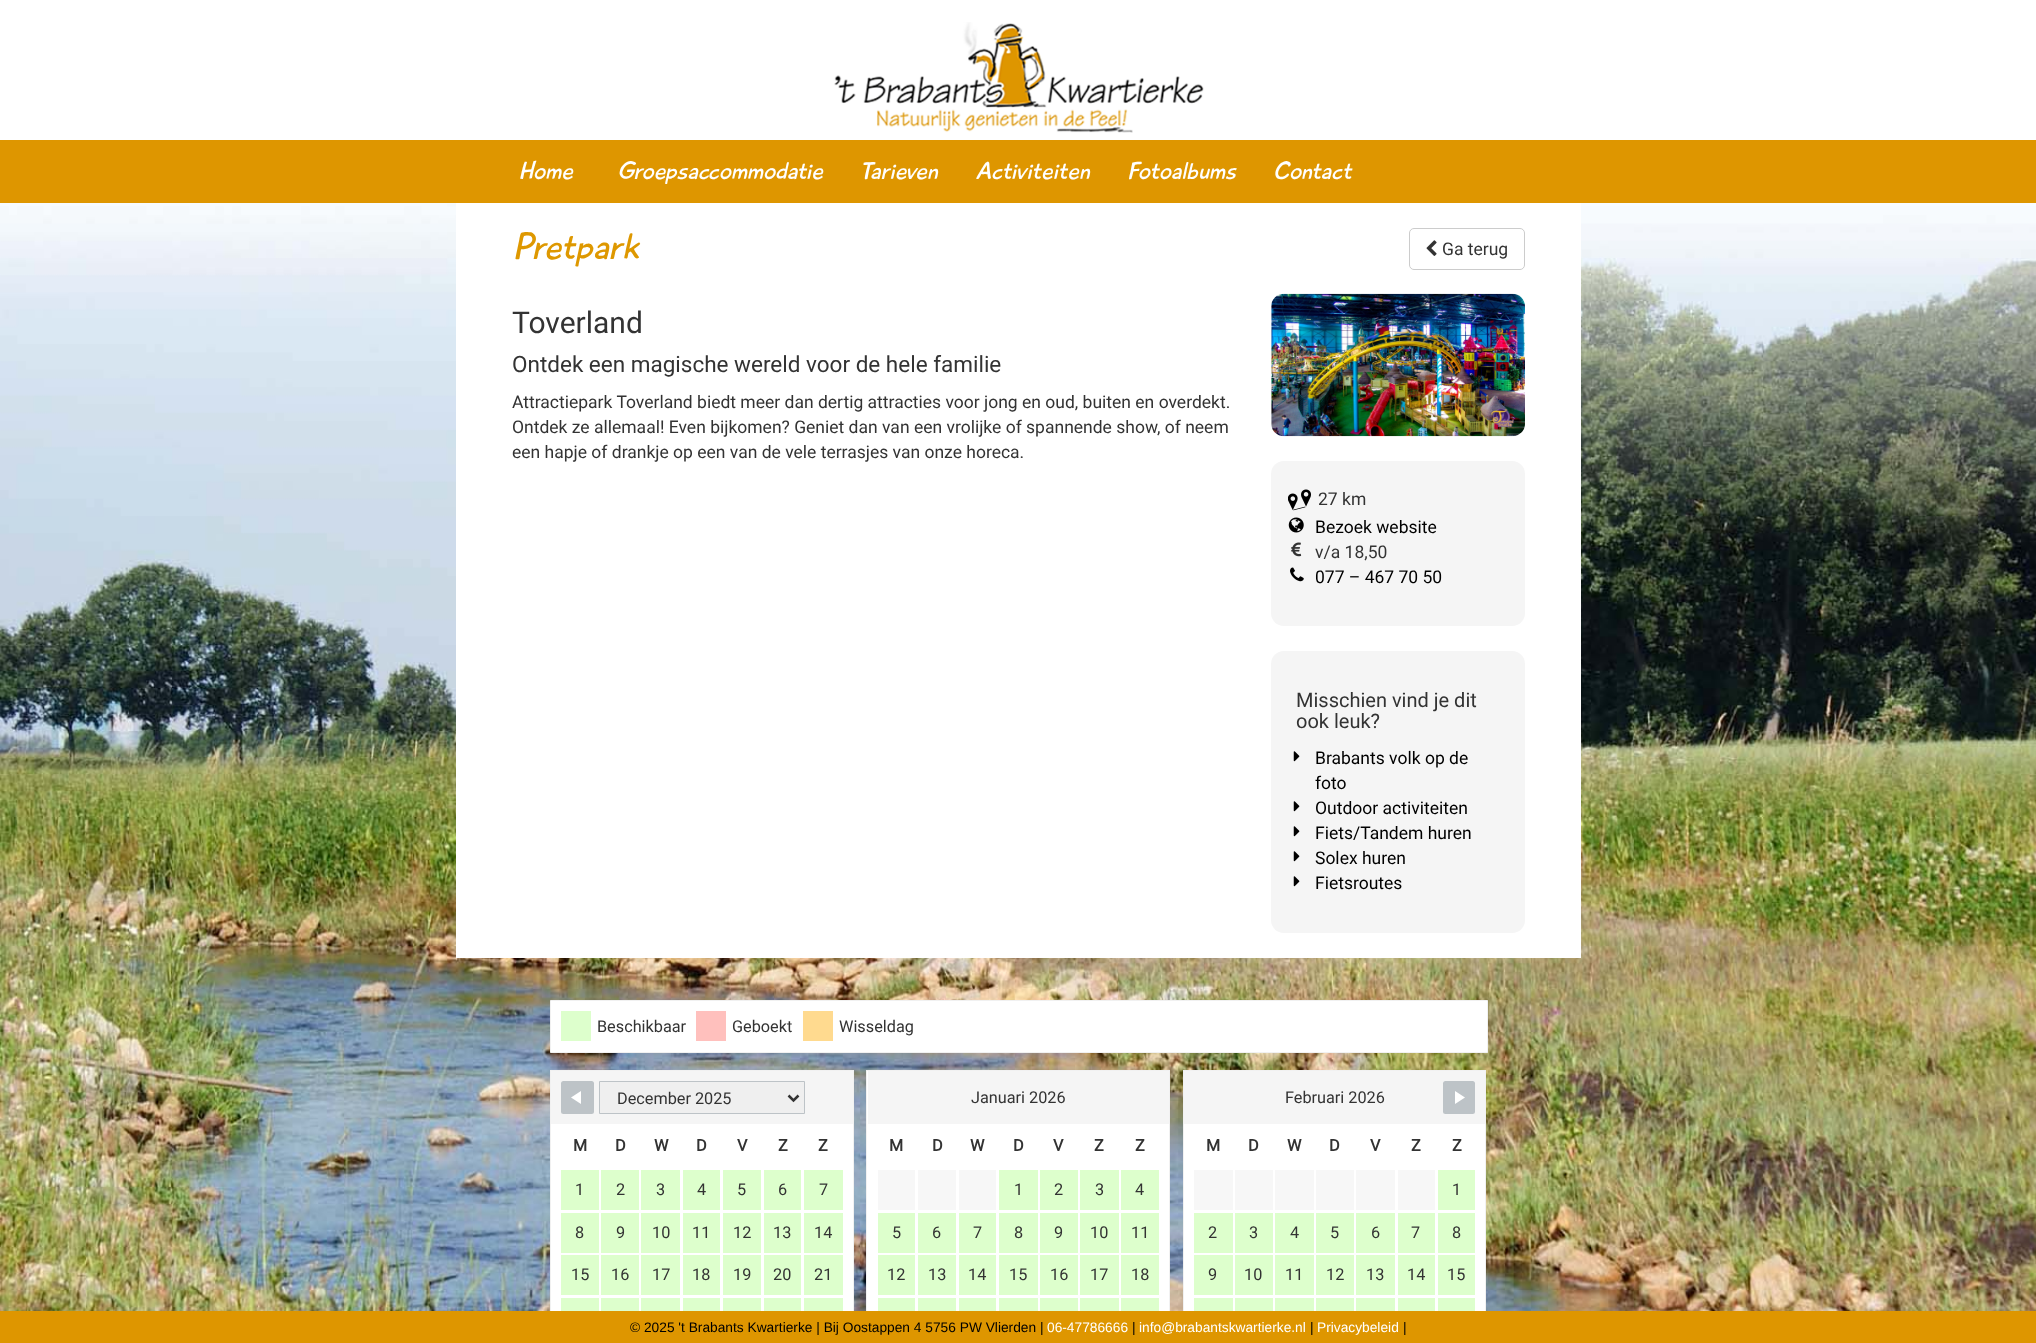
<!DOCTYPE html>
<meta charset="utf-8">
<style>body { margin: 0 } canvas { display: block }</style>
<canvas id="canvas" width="2036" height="1343"></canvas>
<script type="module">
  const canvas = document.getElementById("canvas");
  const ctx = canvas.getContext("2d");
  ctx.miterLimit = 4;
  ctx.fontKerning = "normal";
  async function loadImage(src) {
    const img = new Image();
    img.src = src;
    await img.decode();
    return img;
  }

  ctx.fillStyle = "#ffffff";
  ctx.fillRect(0, 0, 2036, 1343);
  ctx.drawImage(await loadImage("img1.png"), 0, 203, 2036, 1108);
  ctx.drawImage(await loadImage("img2.png"), 834, 22, 370, 111);
  ctx.fillStyle = "#de9600";
  ctx.fillRect(0, 140, 2036, 63);
  ctx.font = "italic 500 25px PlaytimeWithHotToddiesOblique";
  ctx.fillStyle = "#ffffff";
  ctx.fillText("Home", 518, 179);
  ctx.fillText("Groepsaccommodatie", 617, 179);
  ctx.fillText("Tarieven", 860, 179);
  ctx.fillText("Activiteiten", 976, 179);
  ctx.fillText("Fotoalbums", 1127, 179);
  ctx.fillText("Contact", 1273, 179);
  ctx.fillRect(456, 203, 1125, 755);
  ctx.font = "italic 500 37.5px PlaytimeWithHotToddiesOblique";
  ctx.fillStyle = "#de9800";
  ctx.fillText("Pretpark", 512, 259);
  ctx.beginPath();
  ctx.roundRect(1409.5, 228.5, 115, 41, 4.5);
  ctx.strokeStyle = "#cccccc";
  ctx.stroke();
  ctx.drawImage(await loadImage("img3.png"), 1426, 240, 11, 16);
  ctx.font = "17.5px Roboto";
  ctx.fillStyle = "#333333";
  ctx.fillText("Ga terug", 1442, 255);
  ctx.font = "30px Roboto";
  ctx.fillText("Toverland", 512, 333);
  ctx.font = "22.5px Roboto";
  ctx.fillText("Ontdek een magische wereld voor de hele familie", 512, 372);
  ctx.font = "17.5px Roboto";
  ctx.fillText("Attractiepark Toverland biedt meer dan dertig attracties voor jong en oud, buiten en overdekt.", 512, 408);
  ctx.fillText("Ontdek ze allemaal! Even bijkomen? Geniet dan van een vrolijke of spannende show, of neem", 512, 433);
  ctx.fillText("een hapje of drankje op een van de vele terrasjes van onze horeca.", 512, 458);
  ctx.drawImage(await loadImage("img4.png"), 1271, 293, 254, 144);
  ctx.fillStyle = "#f5f5f5";
  ctx.beginPath();
  ctx.roundRect(1271, 461, 254, 165, 13);
  ctx.fill();
  ctx.drawImage(await loadImage("img5.png"), 1288, 489, 23, 22);
  ctx.fillStyle = "#333333";
  ctx.fillText("27 km", 1318, 505);
  ctx.drawImage(await loadImage("img6.png"), 1288, 517, 16, 16);
  ctx.fillStyle = "#000000";
  ctx.fillText("Bezoek website", 1315, 533);
  ctx.drawImage(await loadImage("img7.png"), 1291, 542, 11, 15);
  ctx.fillStyle = "#333333";
  ctx.fillText("v/a 18,50", 1315, 558);
  ctx.drawImage(await loadImage("img8.png"), 1290, 567, 14, 15);
  ctx.fillStyle = "#000000";
  ctx.fillText("077 – 467 70 50", 1315, 583);
  ctx.fillStyle = "#f5f5f5";
  ctx.beginPath();
  ctx.roundRect(1271, 651, 254, 282, 13);
  ctx.fill();
  ctx.font = "20px Roboto";
  ctx.fillStyle = "#333333";
  ctx.fillText("Misschien vind je dit", 1296, 707);
  ctx.fillText("ook leuk?", 1296, 728);
  ctx.drawImage(await loadImage("img9.png"), 1293, 751, 7, 11);
  ctx.font = "17.5px Roboto";
  ctx.fillStyle = "#000000";
  ctx.fillText("Brabants volk op de", 1315, 764);
  ctx.fillText("foto", 1315, 789);
  ctx.drawImage(await loadImage("img9.png"), 1293, 801, 7, 11);
  ctx.fillText("Outdoor activiteiten", 1315, 814);
  ctx.drawImage(await loadImage("img9.png"), 1293, 826, 7, 11);
  ctx.fillText("Fiets/Tandem huren", 1315, 839);
  ctx.drawImage(await loadImage("img9.png"), 1293, 851, 7, 11);
  ctx.fillText("Solex huren", 1315, 864);
  ctx.drawImage(await loadImage("img9.png"), 1293, 876, 7, 11);
  ctx.fillText("Fietsroutes", 1315, 889);
  ctx.fillStyle = "#ffffff";
  ctx.beginPath();
  ctx.rect(550.5, 1000.5, 937, 52);
  ctx.fill();
  ctx.strokeStyle = "#f1f1f1";
  ctx.stroke();
  ctx.fillStyle = "#ddffcc";
  ctx.fillRect(561, 1011, 30, 30);
  ctx.font = "16.25px Roboto";
  ctx.fillStyle = "#333333";
  ctx.fillText("Beschikbaar", 597, 1032);
  ctx.fillStyle = "#ffc0bd";
  ctx.fillRect(696, 1011, 30, 30);
  ctx.fillStyle = "#333333";
  ctx.fillText("Geboekt", 732, 1032);
  ctx.fillStyle = "#ffda8f";
  ctx.fillRect(803, 1011, 30, 30);
  ctx.fillStyle = "#333333";
  ctx.fillText("Wisseldag", 839, 1032);
  ctx.fillStyle = "#ffffff";
  ctx.fillRect(551, 1124, 302, 187);
  ctx.strokeRect(550.5, 1070.5, 303, 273);
  ctx.fillStyle = "#f5f5f5";
  ctx.fillRect(551, 1071, 302, 53);
  ctx.fillStyle = "#bdc3c7";
  ctx.beginPath();
  ctx.roundRect(561, 1081, 33, 33, 2.5);
  ctx.fill();
  ctx.fillStyle = "#ffffff";
  ctx.beginPath();
  ctx.moveTo(581, 1091);
  ctx.lineTo(581, 1104);
  ctx.lineTo(571, 1097.5);
  ctx.closePath();
  ctx.fill();
  ctx.fillStyle = "#efefef";
  ctx.beginPath();
  ctx.rect(599.5, 1081.5, 205, 32);
  ctx.fill();
  ctx.strokeStyle = "#bdc3c7";
  ctx.stroke();
  ctx.beginPath();
  ctx.moveTo(788.5, 1095.5);
  ctx.lineTo(793.5, 1100.5);
  ctx.lineTo(798.5, 1095.5);
  ctx.strokeStyle = "#333333";
  ctx.lineWidth = 2.5;
  ctx.stroke();
  ctx.fillStyle = "#333333";
  ctx.fillText("December 2025", 617, 1104);
  ctx.font = "bold 16.25px Roboto";
  ctx.fillText("M", 573, 1151);
  ctx.fillText("D", 615, 1151);
  ctx.fillText("W", 654, 1151);
  ctx.fillText("D", 696, 1151);
  ctx.fillText("V", 737, 1151);
  ctx.fillText("Z", 778, 1151);
  ctx.fillText("Z", 818, 1151);
  ctx.fillStyle = "#ddffcc";
  ctx.fillRect(561, 1170, 38, 40);
  ctx.font = "16.25px Roboto";
  ctx.fillStyle = "#333333";
  ctx.fillText("1", 575, 1195);
  ctx.fillStyle = "#ddffcc";
  ctx.fillRect(601, 1170, 38, 40);
  ctx.fillStyle = "#333333";
  ctx.fillText("2", 616, 1195);
  ctx.fillStyle = "#ddffcc";
  ctx.fillRect(641, 1170, 39, 40);
  ctx.fillStyle = "#333333";
  ctx.fillText("3", 656, 1195);
  ctx.fillStyle = "#ddffcc";
  ctx.fillRect(683, 1170, 37, 40);
  ctx.fillStyle = "#333333";
  ctx.fillText("4", 697, 1195);
  ctx.fillStyle = "#ddffcc";
  ctx.fillRect(723, 1170, 38, 40);
  ctx.fillStyle = "#333333";
  ctx.fillText("5", 737, 1195);
  ctx.fillStyle = "#ddffcc";
  ctx.fillRect(764, 1170, 37, 40);
  ctx.fillStyle = "#333333";
  ctx.fillText("6", 778, 1195);
  ctx.fillStyle = "#ddffcc";
  ctx.fillRect(804, 1170, 39, 40);
  ctx.fillStyle = "#333333";
  ctx.fillText("7", 819, 1195);
  ctx.fillStyle = "#ddffcc";
  ctx.fillRect(561, 1213, 38, 40);
  ctx.fillStyle = "#333333";
  ctx.fillText("8", 575, 1238);
  ctx.fillStyle = "#ddffcc";
  ctx.fillRect(601, 1213, 38, 40);
  ctx.fillStyle = "#333333";
  ctx.fillText("9", 616, 1238);
  ctx.fillStyle = "#ddffcc";
  ctx.fillRect(641, 1213, 39, 40);
  ctx.fillStyle = "#333333";
  ctx.fillText("10", 652, 1238);
  ctx.fillStyle = "#ddffcc";
  ctx.fillRect(683, 1213, 37, 40);
  ctx.fillStyle = "#333333";
  ctx.fillText("11", 692, 1238);
  ctx.fillStyle = "#ddffcc";
  ctx.fillRect(723, 1213, 38, 40);
  ctx.fillStyle = "#333333";
  ctx.fillText("12", 733, 1238);
  ctx.fillStyle = "#ddffcc";
  ctx.fillRect(764, 1213, 37, 40);
  ctx.fillStyle = "#333333";
  ctx.fillText("13", 773, 1238);
  ctx.fillStyle = "#ddffcc";
  ctx.fillRect(804, 1213, 39, 40);
  ctx.fillStyle = "#333333";
  ctx.fillText("14", 814, 1238);
  ctx.fillStyle = "#ddffcc";
  ctx.fillRect(561, 1255, 38, 40);
  ctx.fillStyle = "#333333";
  ctx.fillText("15", 571, 1280);
  ctx.fillStyle = "#ddffcc";
  ctx.fillRect(601, 1255, 38, 40);
  ctx.fillStyle = "#333333";
  ctx.fillText("16", 611, 1280);
  ctx.fillStyle = "#ddffcc";
  ctx.fillRect(641, 1255, 39, 40);
  ctx.fillStyle = "#333333";
  ctx.fillText("17", 652, 1280);
  ctx.fillStyle = "#ddffcc";
  ctx.fillRect(683, 1255, 37, 40);
  ctx.fillStyle = "#333333";
  ctx.fillText("18", 692, 1280);
  ctx.fillStyle = "#ddffcc";
  ctx.fillRect(723, 1255, 38, 40);
  ctx.fillStyle = "#333333";
  ctx.fillText("19", 733, 1280);
  ctx.fillStyle = "#ddffcc";
  ctx.fillRect(764, 1255, 37, 40);
  ctx.fillStyle = "#333333";
  ctx.fillText("20", 773, 1280);
  ctx.fillStyle = "#ddffcc";
  ctx.fillRect(804, 1255, 39, 40);
  ctx.fillStyle = "#333333";
  ctx.fillText("21", 814, 1280);
  ctx.fillStyle = "#ddffcc";
  ctx.fillRect(561, 1298, 38, 13);
  ctx.fillRect(601, 1298, 38, 13);
  ctx.fillRect(641, 1298, 39, 13);
  ctx.fillRect(683, 1298, 37, 13);
  ctx.fillRect(723, 1298, 38, 13);
  ctx.fillRect(764, 1298, 37, 13);
  ctx.fillRect(804, 1298, 39, 13);
  ctx.fillStyle = "#ffffff";
  ctx.fillRect(867, 1071, 302, 240);
  ctx.strokeStyle = "#f1f1f1";
  ctx.lineWidth = 1;
  ctx.strokeRect(866.5, 1070.5, 303, 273);
  ctx.fillStyle = "#f5f5f5";
  ctx.fillRect(868, 1071, 301, 53);
  ctx.fillStyle = "#333333";
  ctx.fillText("Januari 2026", 971, 1103);
  ctx.font = "bold 16.25px Roboto";
  ctx.fillText("M", 889, 1151);
  ctx.fillText("D", 932, 1151);
  ctx.fillText("W", 970, 1151);
  ctx.fillText("D", 1013, 1151);
  ctx.fillText("V", 1053, 1151);
  ctx.fillText("Z", 1094, 1151);
  ctx.fillText("Z", 1135, 1151);
  ctx.fillStyle = "#f7f7f7";
  ctx.fillRect(878, 1170, 37, 40);
  ctx.fillRect(918, 1170, 38, 40);
  ctx.fillRect(959, 1170, 37, 40);
  ctx.fillStyle = "#ddffcc";
  ctx.fillRect(999, 1170, 39, 40);
  ctx.font = "16.25px Roboto";
  ctx.fillStyle = "#333333";
  ctx.fillText("1", 1014, 1195);
  ctx.fillStyle = "#ddffcc";
  ctx.fillRect(1040, 1170, 38, 40);
  ctx.fillStyle = "#333333";
  ctx.fillText("2", 1054, 1195);
  ctx.fillStyle = "#ddffcc";
  ctx.fillRect(1080, 1170, 39, 40);
  ctx.fillStyle = "#333333";
  ctx.fillText("3", 1095, 1195);
  ctx.fillStyle = "#ddffcc";
  ctx.fillRect(1121, 1170, 38, 40);
  ctx.fillStyle = "#333333";
  ctx.fillText("4", 1135, 1195);
  ctx.fillStyle = "#ddffcc";
  ctx.fillRect(878, 1213, 37, 40);
  ctx.fillStyle = "#333333";
  ctx.fillText("5", 892, 1238);
  ctx.fillStyle = "#ddffcc";
  ctx.fillRect(918, 1213, 38, 40);
  ctx.fillStyle = "#333333";
  ctx.fillText("6", 932, 1238);
  ctx.fillStyle = "#ddffcc";
  ctx.fillRect(959, 1213, 37, 40);
  ctx.fillStyle = "#333333";
  ctx.fillText("7", 973, 1238);
  ctx.fillStyle = "#ddffcc";
  ctx.fillRect(999, 1213, 39, 40);
  ctx.fillStyle = "#333333";
  ctx.fillText("8", 1014, 1238);
  ctx.fillStyle = "#ddffcc";
  ctx.fillRect(1040, 1213, 38, 40);
  ctx.fillStyle = "#333333";
  ctx.fillText("9", 1054, 1238);
  ctx.fillStyle = "#ddffcc";
  ctx.fillRect(1080, 1213, 39, 40);
  ctx.fillStyle = "#333333";
  ctx.fillText("10", 1090, 1238);
  ctx.fillStyle = "#ddffcc";
  ctx.fillRect(1121, 1213, 38, 40);
  ctx.fillStyle = "#333333";
  ctx.fillText("11", 1131, 1238);
  ctx.fillStyle = "#ddffcc";
  ctx.fillRect(878, 1255, 37, 40);
  ctx.fillStyle = "#333333";
  ctx.fillText("12", 887, 1280);
  ctx.fillStyle = "#ddffcc";
  ctx.fillRect(918, 1255, 38, 40);
  ctx.fillStyle = "#333333";
  ctx.fillText("13", 928, 1280);
  ctx.fillStyle = "#ddffcc";
  ctx.fillRect(959, 1255, 37, 40);
  ctx.fillStyle = "#333333";
  ctx.fillText("14", 968, 1280);
  ctx.fillStyle = "#ddffcc";
  ctx.fillRect(999, 1255, 39, 40);
  ctx.fillStyle = "#333333";
  ctx.fillText("15", 1009, 1280);
  ctx.fillStyle = "#ddffcc";
  ctx.fillRect(1040, 1255, 38, 40);
  ctx.fillStyle = "#333333";
  ctx.fillText("16", 1050, 1280);
  ctx.fillStyle = "#ddffcc";
  ctx.fillRect(1080, 1255, 39, 40);
  ctx.fillStyle = "#333333";
  ctx.fillText("17", 1090, 1280);
  ctx.fillStyle = "#ddffcc";
  ctx.fillRect(1121, 1255, 38, 40);
  ctx.fillStyle = "#333333";
  ctx.fillText("18", 1131, 1280);
  ctx.fillStyle = "#ddffcc";
  ctx.fillRect(878, 1298, 37, 13);
  ctx.fillRect(918, 1298, 38, 13);
  ctx.fillRect(959, 1298, 37, 13);
  ctx.fillRect(999, 1298, 39, 13);
  ctx.fillRect(1040, 1298, 38, 13);
  ctx.fillRect(1080, 1298, 39, 13);
  ctx.fillRect(1121, 1298, 38, 13);
  ctx.fillStyle = "#ffffff";
  ctx.fillRect(1184, 1124, 301, 187);
  ctx.strokeRect(1183.5, 1070.5, 302, 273);
  ctx.fillStyle = "#f5f5f5";
  ctx.fillRect(1184, 1071, 301, 53);
  ctx.fillStyle = "#333333";
  ctx.fillText("Februari 2026", 1285, 1103);
  ctx.fillStyle = "#bdc3c7";
  ctx.beginPath();
  ctx.roundRect(1443, 1081, 32, 33, 2.5);
  ctx.fill();
  ctx.fillStyle = "#ffffff";
  ctx.beginPath();
  ctx.moveTo(1455, 1104);
  ctx.lineTo(1455, 1091);
  ctx.lineTo(1465, 1097.5);
  ctx.closePath();
  ctx.fill();
  ctx.font = "bold 16.25px Roboto";
  ctx.fillStyle = "#333333";
  ctx.fillText("M", 1206, 1151);
  ctx.fillText("D", 1248, 1151);
  ctx.fillText("W", 1287, 1151);
  ctx.fillText("D", 1329, 1151);
  ctx.fillText("V", 1370, 1151);
  ctx.fillText("Z", 1411, 1151);
  ctx.fillText("Z", 1452, 1151);
  ctx.fillStyle = "#f7f7f7";
  ctx.fillRect(1194, 1170, 39, 40);
  ctx.fillRect(1235, 1170, 38, 40);
  ctx.fillRect(1275, 1170, 39, 40);
  ctx.fillRect(1316, 1170, 38, 40);
  ctx.fillRect(1356, 1170, 39, 40);
  ctx.fillRect(1398, 1170, 37, 40);
  ctx.fillStyle = "#ddffcc";
  ctx.fillRect(1438, 1170, 37, 40);
  ctx.font = "16.25px Roboto";
  ctx.fillStyle = "#333333";
  ctx.fillText("1", 1452, 1195);
  ctx.fillStyle = "#ddffcc";
  ctx.fillRect(1194, 1213, 39, 40);
  ctx.fillStyle = "#333333";
  ctx.fillText("2", 1208, 1238);
  ctx.fillStyle = "#ddffcc";
  ctx.fillRect(1235, 1213, 38, 40);
  ctx.fillStyle = "#333333";
  ctx.fillText("3", 1249, 1238);
  ctx.fillStyle = "#ddffcc";
  ctx.fillRect(1275, 1213, 39, 40);
  ctx.fillStyle = "#333333";
  ctx.fillText("4", 1290, 1238);
  ctx.fillStyle = "#ddffcc";
  ctx.fillRect(1316, 1213, 38, 40);
  ctx.fillStyle = "#333333";
  ctx.fillText("5", 1330, 1238);
  ctx.fillStyle = "#ddffcc";
  ctx.fillRect(1356, 1213, 39, 40);
  ctx.fillStyle = "#333333";
  ctx.fillText("6", 1371, 1238);
  ctx.fillStyle = "#ddffcc";
  ctx.fillRect(1398, 1213, 37, 40);
  ctx.fillStyle = "#333333";
  ctx.fillText("7", 1411, 1238);
  ctx.fillStyle = "#ddffcc";
  ctx.fillRect(1438, 1213, 37, 40);
  ctx.fillStyle = "#333333";
  ctx.fillText("8", 1452, 1238);
  ctx.fillStyle = "#ddffcc";
  ctx.fillRect(1194, 1255, 39, 40);
  ctx.fillStyle = "#333333";
  ctx.fillText("9", 1208, 1280);
  ctx.fillStyle = "#ddffcc";
  ctx.fillRect(1235, 1255, 38, 40);
  ctx.fillStyle = "#333333";
  ctx.fillText("10", 1244, 1280);
  ctx.fillStyle = "#ddffcc";
  ctx.fillRect(1275, 1255, 39, 40);
  ctx.fillStyle = "#333333";
  ctx.fillText("11", 1285, 1280);
  ctx.fillStyle = "#ddffcc";
  ctx.fillRect(1316, 1255, 38, 40);
  ctx.fillStyle = "#333333";
  ctx.fillText("12", 1326, 1280);
  ctx.fillStyle = "#ddffcc";
  ctx.fillRect(1356, 1255, 39, 40);
  ctx.fillStyle = "#333333";
  ctx.fillText("13", 1366, 1280);
  ctx.fillStyle = "#ddffcc";
  ctx.fillRect(1398, 1255, 37, 40);
  ctx.fillStyle = "#333333";
  ctx.fillText("14", 1407, 1280);
  ctx.fillStyle = "#ddffcc";
  ctx.fillRect(1438, 1255, 37, 40);
  ctx.fillStyle = "#333333";
  ctx.fillText("15", 1447, 1280);
  ctx.fillStyle = "#ddffcc";
  ctx.fillRect(1194, 1298, 39, 13);
  ctx.fillRect(1235, 1298, 38, 13);
  ctx.fillRect(1275, 1298, 39, 13);
  ctx.fillRect(1316, 1298, 38, 13);
  ctx.fillRect(1356, 1298, 39, 13);
  ctx.fillRect(1398, 1298, 37, 13);
  ctx.fillRect(1438, 1298, 37, 13);
  ctx.fillStyle = "#de9600";
  ctx.fillRect(0, 1311, 2036, 32);
  ctx.font = "13.75px Liberation Sans";
  ctx.fillStyle = "#000000";
  ctx.fillText("© 2025 't Brabants Kwartierke | Bij Oostappen 4 5756 PW Vlierden |", 630, 1332);
  ctx.fillStyle = "#ffffff";
  ctx.fillText("06-47786666", 1047, 1332);
  ctx.fillStyle = "#000000";
  ctx.fillText("|", 1132, 1332);
  ctx.fillStyle = "#ffffff";
  ctx.fillText("info@brabantskwartierke.nl", 1139, 1332);
  ctx.fillStyle = "#000000";
  ctx.fillText("|", 1310, 1332);
  ctx.fillStyle = "#ffffff";
  ctx.fillText("Privacybeleid", 1317, 1332);
  ctx.fillStyle = "#000000";
  ctx.fillText("|", 1403, 1332);
</script>
